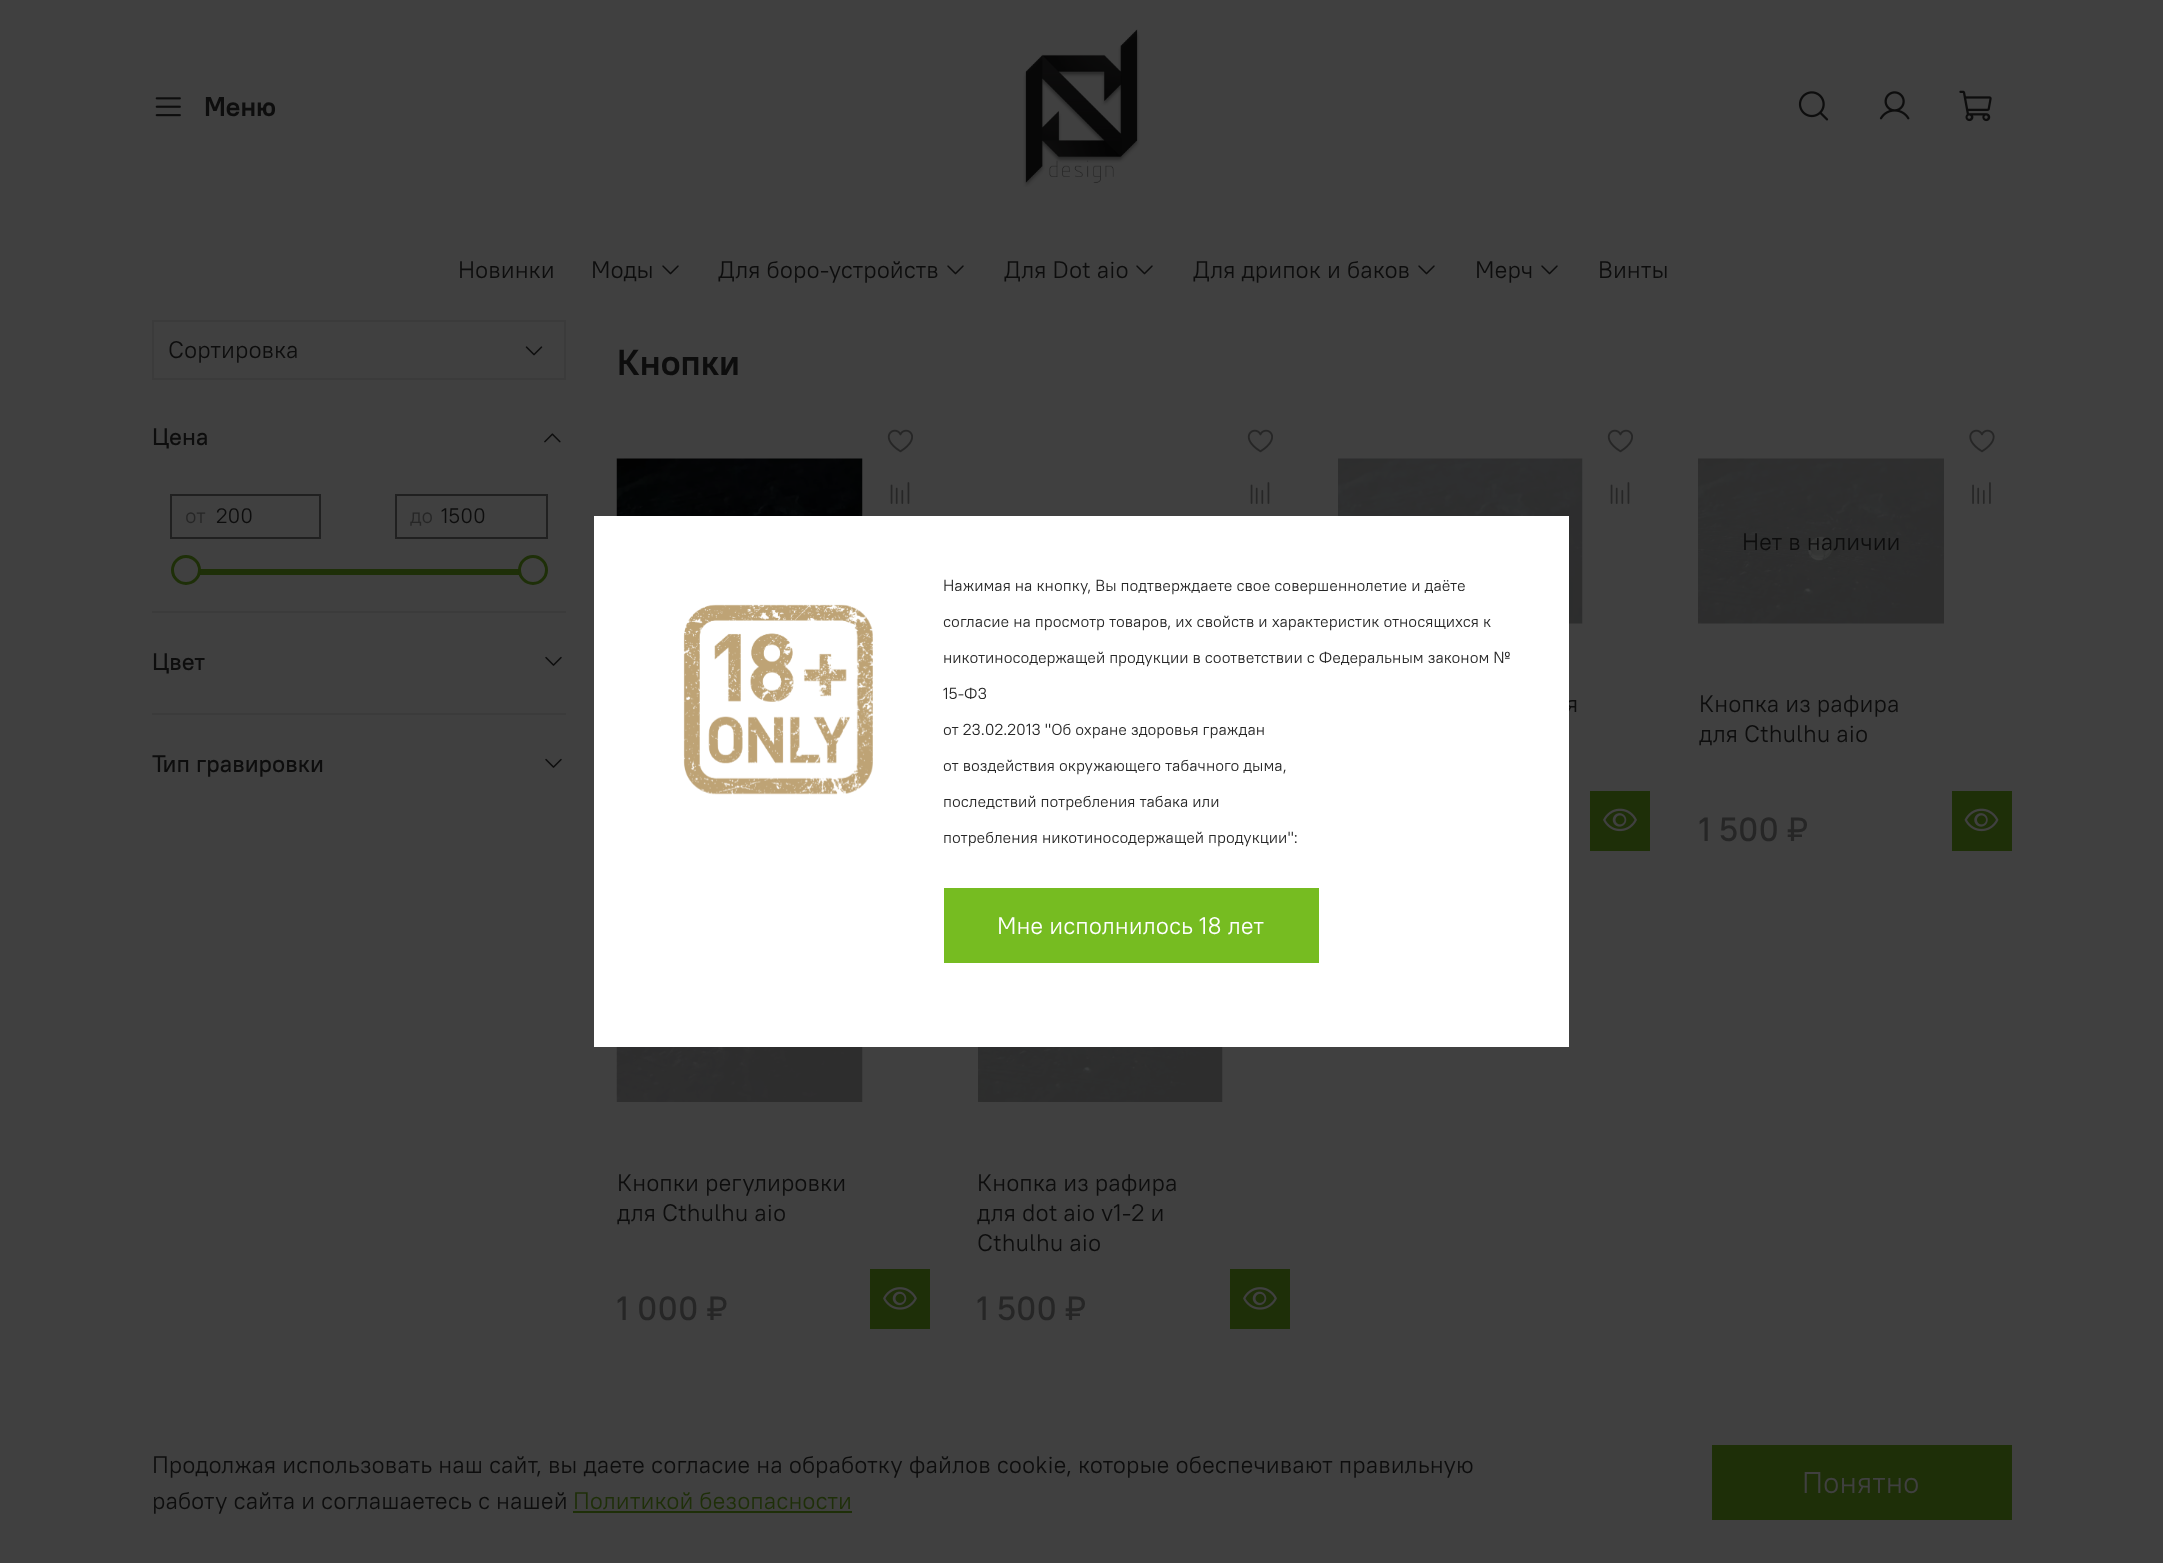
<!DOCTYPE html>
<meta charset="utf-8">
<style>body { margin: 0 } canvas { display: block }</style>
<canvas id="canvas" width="2163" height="1563"></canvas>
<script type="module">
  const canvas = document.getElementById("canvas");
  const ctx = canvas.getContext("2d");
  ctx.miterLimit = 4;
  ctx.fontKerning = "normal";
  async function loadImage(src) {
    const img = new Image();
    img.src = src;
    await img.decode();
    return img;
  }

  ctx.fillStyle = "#404040";
  ctx.fillRect(0, 0, 2163, 1563);
  ctx.drawImage(await loadImage("img1.png"), 155, 97, 26, 20);
  ctx.font = "bold 27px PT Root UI";
  ctx.fillStyle = "#0d0d0d";
  ctx.fillText("Меню", 204, 116);
  ctx.drawImage(await loadImage("img2.png"), 1023, 29, 117, 158);
  ctx.drawImage(await loadImage("img3.png"), 1798, 91, 31, 30);
  ctx.drawImage(await loadImage("img4.png"), 1879, 91, 31, 29);
  ctx.drawImage(await loadImage("img5.png"), 1959, 90, 33, 32);
  ctx.font = "24px PT Root UI";
  ctx.fillText("Новинки", 458, 278);
  ctx.fillText("Моды", 591, 278);
  ctx.drawImage(await loadImage("img6.png"), 662, 265, 17, 10);
  ctx.fillText("Для боро-устройств", 718, 278);
  ctx.drawImage(await loadImage("img6.png"), 947, 265, 17, 10);
  ctx.fillText("Для Dot aio", 1004, 278);
  ctx.drawImage(await loadImage("img6.png"), 1136, 265, 17, 10);
  ctx.fillText("Для дрипок и баков", 1193, 278);
  ctx.drawImage(await loadImage("img6.png"), 1418, 265, 17, 10);
  ctx.fillText("Мерч", 1475, 278);
  ctx.drawImage(await loadImage("img6.png"), 1541, 265, 17, 10);
  ctx.fillText("Винты", 1598, 278);
  ctx.strokeStyle = "#3b3b3b";
  ctx.lineWidth = 2;
  ctx.strokeRect(153, 321, 412, 58);
  ctx.fillText("Сортировка", 168, 358);
  ctx.drawImage(await loadImage("img7.png"), 525, 346, 18, 10);
  ctx.fillStyle = "#3b3b3b";
  ctx.fillRect(152, 611, 414, 2);
  ctx.font = "500 24px PT Root UI";
  ctx.fillStyle = "#0d0d0d";
  ctx.fillText("Цена", 152, 445);
  ctx.drawImage(await loadImage("img8.png"), 544, 433, 17, 10);
  ctx.strokeStyle = "#202020";
  ctx.strokeRect(171, 495, 149, 43);
  ctx.font = "21px PT Root UI";
  ctx.fillStyle = "#262626";
  ctx.fillText("от", 185, 523);
  ctx.fillStyle = "#0d0d0d";
  ctx.fillText("200", 216, 523);
  ctx.strokeRect(396, 495, 151, 43);
  ctx.fillStyle = "#262626";
  ctx.fillText("до", 410, 523);
  ctx.fillStyle = "#0d0d0d";
  ctx.fillText("1500", 441, 523);
  ctx.fillStyle = "#1e2f08";
  ctx.fillRect(200, 569, 319, 6);
  ctx.fillStyle = "#404040";
  ctx.beginPath();
  ctx.arc(186, 570, 13.5, 0, Math.PI * 2);
  ctx.fill();
  ctx.strokeStyle = "#1e2f08";
  ctx.lineWidth = 3;
  ctx.stroke();
  ctx.beginPath();
  ctx.arc(533, 570, 13.5, 0, Math.PI * 2);
  ctx.fill();
  ctx.stroke();
  ctx.fillStyle = "#3b3b3b";
  ctx.fillRect(152, 713, 414, 2);
  ctx.font = "500 24px PT Root UI";
  ctx.fillStyle = "#0d0d0d";
  ctx.fillText("Цвет", 152, 670);
  ctx.drawImage(await loadImage("img9.png"), 545, 656, 17, 10);
  ctx.fillText("Тип гравировки", 152, 772);
  ctx.drawImage(await loadImage("img9.png"), 545, 758, 17, 10);
  ctx.font = "bold 36px PT Root UI";
  ctx.fillText("Кнопки", 617, 375);
  ctx.drawImage(await loadImage("img10.png"), 616, 458, 247, 58);
  ctx.drawImage(await loadImage("img11.png"), 887, 429, 26, 24);
  ctx.drawImage(await loadImage("img12.png"), 890, 482, 20, 22);
  ctx.drawImage(await loadImage("img11.png"), 1247, 429, 26, 24);
  ctx.drawImage(await loadImage("img12.png"), 1250, 482, 20, 22);
  ctx.drawImage(await loadImage("img13.png"), 1338, 458, 245, 166);
  ctx.drawImage(await loadImage("img11.png"), 1607, 429, 26, 24);
  ctx.drawImage(await loadImage("img12.png"), 1610, 482, 20, 22);
  ctx.fillStyle = "#1e2f08";
  ctx.fillRect(1590, 791, 60, 60);
  ctx.drawImage(await loadImage("img14.png"), 1603, 808, 34, 24);
  ctx.font = "24px PT Root UI";
  ctx.fillStyle = "#0d0d0d";
  ctx.fillText("я", 1566, 712);
  ctx.drawImage(await loadImage("img15.png"), 1698, 458, 246, 166);
  ctx.fillText("Нет в наличии", 1742, 550);
  ctx.fillText("Кнопка из рафира", 1699, 712);
  ctx.fillText("для Cthulhu aio", 1699, 742);
  ctx.font = "500 33.5px PT Root UI";
  ctx.fillStyle = "#262626";
  ctx.fillText("1 500 ₽", 1699, 841);
  ctx.drawImage(await loadImage("img16.png"), 1969, 429, 26, 24);
  ctx.drawImage(await loadImage("img17.png"), 1972, 482, 19, 22);
  ctx.fillStyle = "#1e2f08";
  ctx.fillRect(1952, 791, 60, 60);
  ctx.drawImage(await loadImage("img18.png"), 1964, 808, 35, 24);
  ctx.drawImage(await loadImage("img19.png"), 616, 1047, 247, 55);
  ctx.font = "24px PT Root UI";
  ctx.fillStyle = "#0d0d0d";
  ctx.fillText("Кнопки регулировки", 617, 1191);
  ctx.fillText("для Cthulhu aio", 617, 1221);
  ctx.font = "500 33.5px PT Root UI";
  ctx.fillStyle = "#262626";
  ctx.fillText("1 000 ₽", 617, 1320);
  ctx.fillStyle = "#1e2f08";
  ctx.fillRect(870, 1269, 60, 60);
  ctx.drawImage(await loadImage("img20.png"), 883, 1287, 34, 23);
  ctx.drawImage(await loadImage("img21.png"), 978, 1047, 245, 55);
  ctx.font = "24px PT Root UI";
  ctx.fillStyle = "#0d0d0d";
  ctx.fillText("Кнопка из рафира", 977, 1191);
  ctx.fillText("для dot aio v1-2 и", 977, 1221);
  ctx.fillText("Cthulhu aio", 977, 1251);
  ctx.font = "500 33.5px PT Root UI";
  ctx.fillStyle = "#262626";
  ctx.fillText("1 500 ₽", 977, 1320);
  ctx.fillStyle = "#1e2f08";
  ctx.fillRect(1230, 1269, 60, 60);
  ctx.drawImage(await loadImage("img20.png"), 1243, 1287, 34, 23);
  ctx.fillStyle = "#ffffff";
  ctx.fillRect(594, 516, 975, 531);
  ctx.drawImage(await loadImage("img22.png"), 683, 604, 190, 191);
  ctx.font = "16px PT Root UI";
  ctx.fillStyle = "#262626";
  ctx.fillText("Нажимая на кнопку, Вы подтверждаете свое совершеннолетие и даёте", 943, 591);
  ctx.fillText("согласие на просмотр товаров, их свойств и характеристик относящихся к", 943, 627);
  ctx.fillText("никотиносодержащей продукции в соответствии с Федеральным законом №", 943, 663);
  ctx.fillText("15-ФЗ", 943, 699);
  ctx.fillText("от 23.02.2013 \"Об охране здоровья граждан", 943, 735);
  ctx.fillText("от воздействия окружающего табачного дыма,", 943, 771);
  ctx.fillText("последствий потребления табака или", 943, 807);
  ctx.fillText("потребления никотиносодержащей продукции\":", 943, 843);
  ctx.fillStyle = "#76bc21";
  ctx.fillRect(944, 888, 375, 75);
  ctx.font = "24px PT Root UI";
  ctx.fillStyle = "#ffffff";
  ctx.fillText("Мне исполнилось 18 лет", 997, 934);
  ctx.fillStyle = "#0d0d0d";
  ctx.fillText("Продолжая использовать наш сайт, вы даете согласие на обработку файлов cookie, которые обеспечивают правильную", 152, 1473);
  ctx.fillText("работу сайта и соглашаетесь с нашей", 152, 1509);
  ctx.fillStyle = "#1e2f08";
  ctx.fillText("Политикой безопасности", 573, 1509);
  ctx.fillRect(573, 1511, 279, 2);
  ctx.fillRect(1712, 1445, 300, 75);
  ctx.font = "30px PT Root UI";
  ctx.fillStyle = "#404040";
  ctx.fillText("Понятно", 1802, 1493);
</script>
